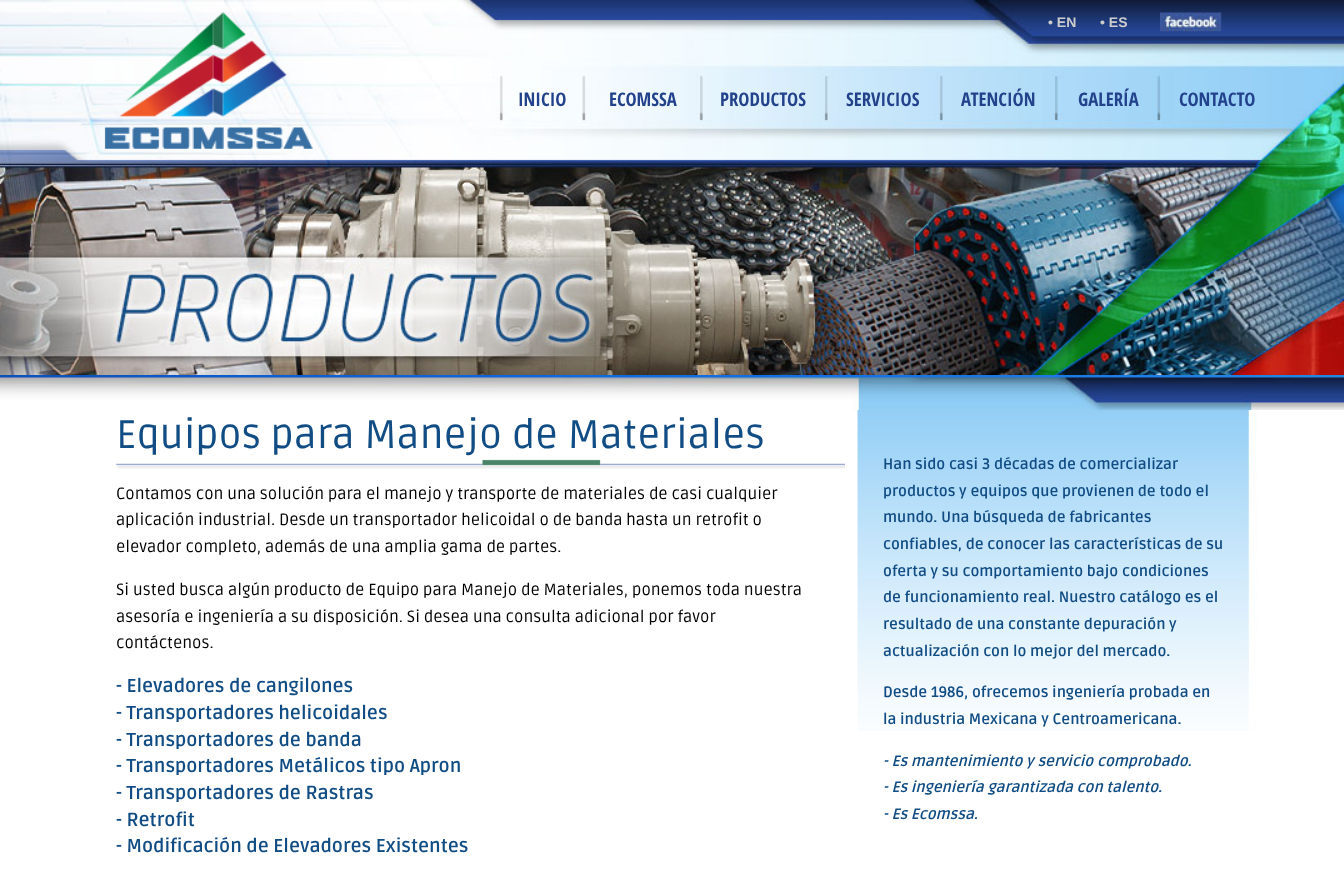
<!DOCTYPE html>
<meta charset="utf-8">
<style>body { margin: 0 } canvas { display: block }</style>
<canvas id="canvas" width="1344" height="891"></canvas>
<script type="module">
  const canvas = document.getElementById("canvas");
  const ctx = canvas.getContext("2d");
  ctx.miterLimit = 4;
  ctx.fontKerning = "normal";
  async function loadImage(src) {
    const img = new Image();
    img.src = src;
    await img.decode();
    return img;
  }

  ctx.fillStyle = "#ffffff";
  ctx.fillRect(0, 0, 1344, 891);
  ctx.drawImage(await loadImage("img1.png"), 0, 0, 1344, 165);
  ctx.drawImage(await loadImage("img2.png"), 104, 12, 209, 137);
  ctx.font = "bold 14px Liberation Sans";
  ctx.fillStyle = "#cccccc";
  ctx.fillText("• EN", 1048, 27);
  ctx.fillText("• ES", 1100, 27);
  ctx.drawImage(await loadImage("img3.png"), 1160, 12, 62, 20);
  ctx.font = "bold 18.75px Open Sans Condensed";
  ctx.fillStyle = "#23428c";
  ctx.fillText("INICIO", 518, 106);
  ctx.fillText("ECOMSSA", 609, 106);
  ctx.fillText("PRODUCTOS", 720, 106);
  ctx.fillText("SERVICIOS", 846, 106);
  ctx.fillText("ATENCIÓN", 961, 106);
  ctx.fillText("GALERÍA", 1078, 106);
  ctx.fillText("CONTACTO", 1179, 106);
  ctx.drawImage(await loadImage("img4.png"), 0, 165, 1344, 210);
  ctx.drawImage(await loadImage("img5.png"), 0, 375, 1344, 35);
  ctx.font = "40px Ruda";
  ctx.fillStyle = "#114d84";
  ctx.fillText("Equipos para Manejo de Materiales", 116, 448);
  ctx.drawImage(await loadImage("img6.png"), 116, 459, 729, 10);
  ctx.font = "16.25px Ruda";
  ctx.fillStyle = "#000000";
  ctx.fillText("Contamos con una solución para el manejo y transporte de materiales de casi cualquier", 116, 499);
  ctx.fillText("aplicación industrial. Desde un transportador helicoidal o de banda hasta un retrofit o", 116, 525);
  ctx.fillText("elevador completo, además de una amplia gama de partes.", 116, 552);
  ctx.fillText("Si usted busca algún producto de Equipo para Manejo de Materiales, ponemos toda nuestra", 116, 595);
  ctx.fillText("asesoría e ingeniería a su disposición. Si desea una consulta adicional por favor", 116, 622);
  ctx.fillText("contáctenos.", 116, 648);
  ctx.font = "bold 18.75px Ruda";
  ctx.fillStyle = "#114d84";
  ctx.fillText("- Elevadores de cangilones", 116, 692);
  ctx.fillText("- Transportadores helicoidales", 116, 719);
  ctx.fillText("- Transportadores de banda", 116, 746);
  ctx.fillText("- Transportadores Metálicos tipo Apron", 116, 772);
  ctx.fillText("- Transportadores de Rastras", 116, 799);
  ctx.fillText("- Retrofit", 116, 826);
  ctx.fillText("- Modificación de Elevadores Existentes", 116, 852);
  ctx.drawImage(await loadImage("img7.png"), 857, 410, 400, 321);
  ctx.font = "bold 15px Ruda";
  ctx.fillText("Han sido casi 3 décadas de comercializar", 883, 469);
  ctx.fillText("productos y equipos que provienen de todo el", 883, 496);
  ctx.fillText("mundo. Una búsqueda de fabricantes", 883, 522);
  ctx.fillText("confiables, de conocer las características de su", 883, 549);
  ctx.fillText("oferta y su comportamiento bajo condiciones", 883, 576);
  ctx.fillText("de funcionamiento real. Nuestro catálogo es el", 883, 602);
  ctx.fillText("resultado de una constante depuración y", 883, 629);
  ctx.fillText("actualización con lo mejor del mercado.", 883, 656);
  ctx.fillText("Desde 1986, ofrecemos ingeniería probada en", 883, 697);
  ctx.fillText("la industria Mexicana y Centroamericana.", 883, 724);
  ctx.font = "italic bold 15px Ruda";
  ctx.fillText("- Es mantenimiento y servicio comprobado.", 883, 766);
  ctx.fillText("- Es ingeniería garantizada con talento.", 883, 792);
  ctx.fillText("- Es Ecomssa.", 883, 819);
</script>
